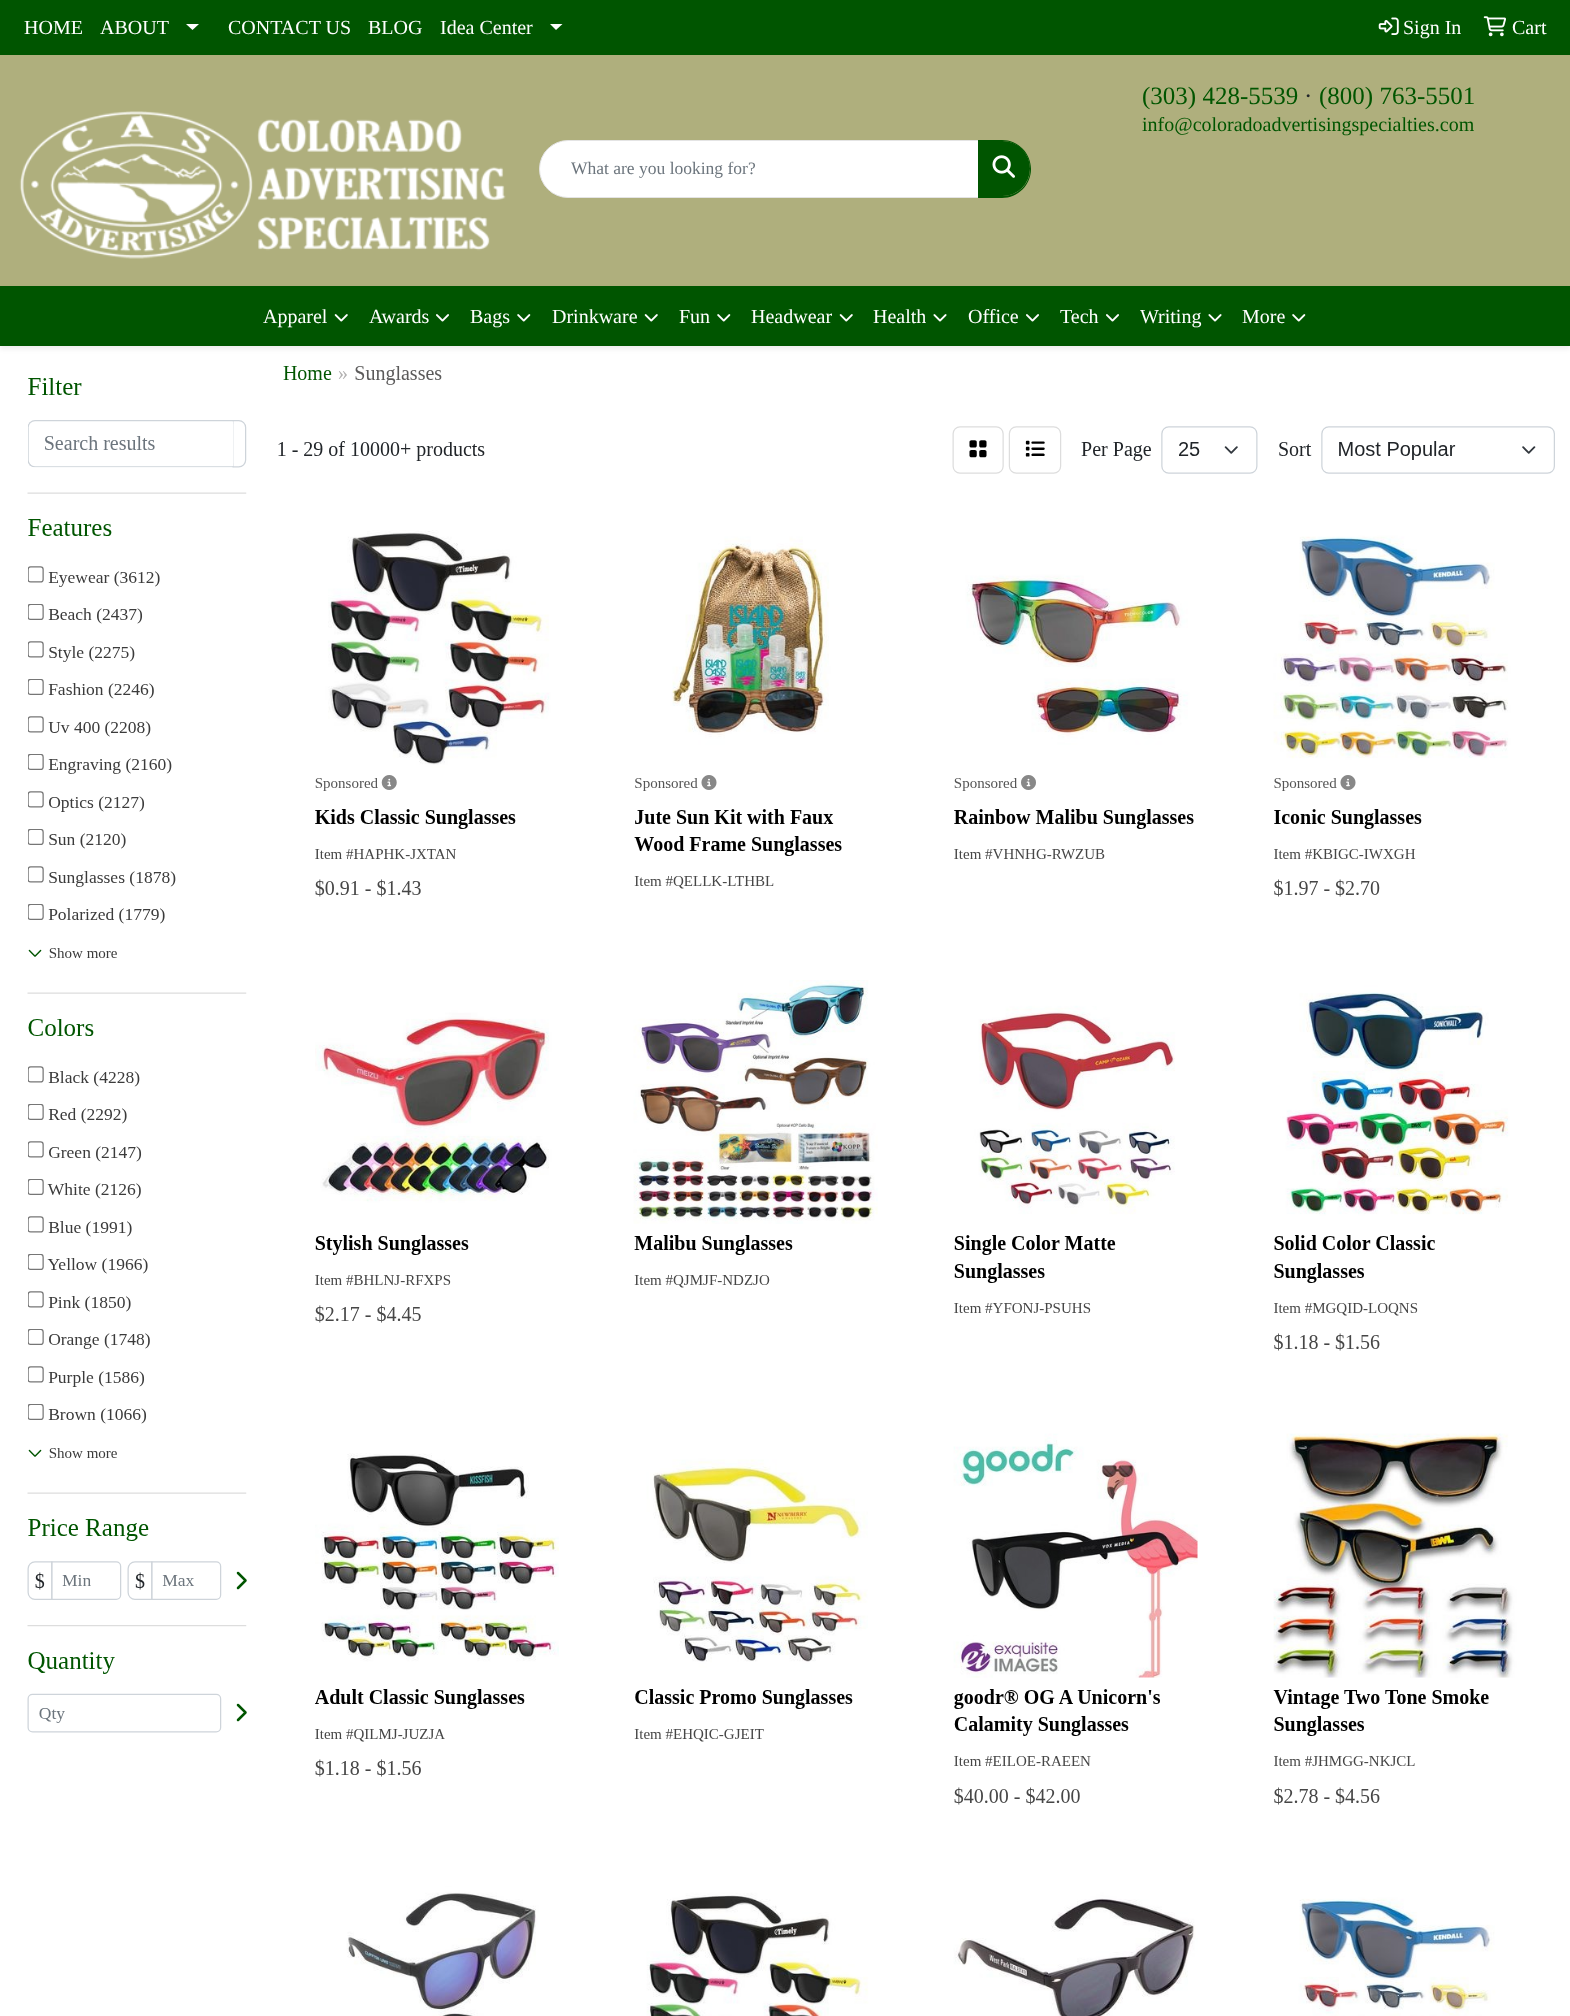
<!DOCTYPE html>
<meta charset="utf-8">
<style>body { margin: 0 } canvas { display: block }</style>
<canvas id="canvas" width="1570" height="2016"></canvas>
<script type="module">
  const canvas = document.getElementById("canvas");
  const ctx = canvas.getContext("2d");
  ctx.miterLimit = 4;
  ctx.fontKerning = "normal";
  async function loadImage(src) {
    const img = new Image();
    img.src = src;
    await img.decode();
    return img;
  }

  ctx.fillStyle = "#ffffff";
  ctx.fillRect(0, 0, 1570, 2016);
  ctx.fillStyle = "#afaf7d";
  ctx.fillRect(0, 55, 1570, 231);
  ctx.fillStyle = "#005500";
  ctx.fillRect(0, 0, 1570, 55);
  ctx.font = "20px Liberation Serif";
  ctx.fillStyle = "#ffffff";
  ctx.fillText("HOME", 24, 34);
  ctx.fillText("ABOUT", 100, 34);
  ctx.beginPath();
  ctx.moveTo(186, 24);
  ctx.lineTo(199, 24);
  ctx.lineTo(192.5, 30);
  ctx.closePath();
  ctx.fill();
  ctx.fillText("CONTACT US", 228, 34);
  ctx.fillText("BLOG", 368, 34);
  ctx.fillText("Idea Center", 440, 34);
  ctx.beginPath();
  ctx.moveTo(550, 24);
  ctx.lineTo(562.5, 24);
  ctx.lineTo(556, 30);
  ctx.closePath();
  ctx.fill();
  ctx.drawImage(await loadImage("img1.png"), 1378, 17, 21, 18);
  ctx.fillText("Sign In", 1403, 34);
  ctx.drawImage(await loadImage("img2.png"), 1483, 16, 23, 21);
  ctx.fillText("Cart", 1512, 34);
  ctx.drawImage(await loadImage("img3.png"), 19, 111, 487, 148);
  ctx.beginPath();
  ctx.roundRect(539.5, 140.5, 439, 57, [28.5, 0, 0, 28.5]);
  ctx.fill();
  ctx.strokeStyle = "#e4e4e4";
  ctx.stroke();
  ctx.font = "17.5px Liberation Serif";
  ctx.fillStyle = "#6c757d";
  ctx.fillText("What are you looking for?", 571, 174);
  ctx.fillStyle = "#005500";
  ctx.beginPath();
  ctx.roundRect(978, 141, 52, 55, [0, 27.5, 27.5, 0]);
  ctx.fill();
  ctx.beginPath();
  ctx.moveTo(978, 140);
  ctx.lineTo(1002, 140);
  ctx.bezierCurveTo(1018, 140, 1031, 153, 1031, 169);
  ctx.bezierCurveTo(1031, 185, 1018, 198, 1002, 198);
  ctx.lineTo(978, 198);
  ctx.closePath();
  ctx.moveTo(978, 141);
  ctx.lineTo(1002, 141);
  ctx.bezierCurveTo(1018, 141, 1030, 154, 1030, 169);
  ctx.bezierCurveTo(1030, 184, 1018, 196, 1002, 196);
  ctx.lineTo(978, 196);
  ctx.closePath();
  ctx.fill("evenodd");
  ctx.drawImage(await loadImage("img4.png"), 992, 155, 23, 23);
  ctx.font = "25px Liberation Serif";
  ctx.fillText("(303) 428-5539", 1142, 104);
  ctx.fillStyle = "#212529";
  ctx.fillText("·", 1304, 104);
  ctx.fillStyle = "#005500";
  ctx.fillText("(800) 763-5501", 1319, 104);
  ctx.font = "20px Liberation Serif";
  ctx.fillText("info@coloradoadvertisingspecialties.com", 1142, 131);
  ctx.fillStyle = "rgba(0, 0, 0, 0.07)";
  ctx.filter = "blur(2.5px)";
  ctx.beginPath();
  ctx.rect(0, 289, 1570, 60);
  ctx.fill();
  ctx.filter = "none";
  ctx.fillStyle = "#005500";
  ctx.fillRect(0, 286, 1570, 60);
  ctx.fillStyle = "#ffffff";
  ctx.fillText("Apparel", 263, 323);
  ctx.drawImage(await loadImage("img5.png"), 334, 314, 14, 8);
  ctx.fillText("Awards", 369, 323);
  ctx.drawImage(await loadImage("img6.png"), 436, 314, 13, 8);
  ctx.fillText("Bags", 470, 323);
  ctx.drawImage(await loadImage("img7.png"), 517, 314, 14, 8);
  ctx.fillText("Drinkware", 552, 323);
  ctx.drawImage(await loadImage("img5.png"), 644, 314, 14, 8);
  ctx.fillText("Fun", 679, 323);
  ctx.drawImage(await loadImage("img7.png"), 717, 314, 14, 8);
  ctx.fillText("Headwear", 751, 323);
  ctx.drawImage(await loadImage("img5.png"), 839, 314, 14, 8);
  ctx.fillText("Health", 873, 323);
  ctx.drawImage(await loadImage("img8.png"), 933, 314, 14, 8);
  ctx.fillText("Office", 968, 323);
  ctx.drawImage(await loadImage("img6.png"), 1026, 314, 13, 8);
  ctx.fillText("Tech", 1060, 323);
  ctx.drawImage(await loadImage("img6.png"), 1106, 314, 13, 8);
  ctx.fillText("Writing", 1140, 323);
  ctx.drawImage(await loadImage("img8.png"), 1208, 314, 14, 8);
  ctx.fillText("More", 1242, 323);
  ctx.drawImage(await loadImage("img7.png"), 1292, 314, 14, 8);
  ctx.drawImage(await loadImage("img9.png"), 27, 366, 1528, 1650);
</script>
